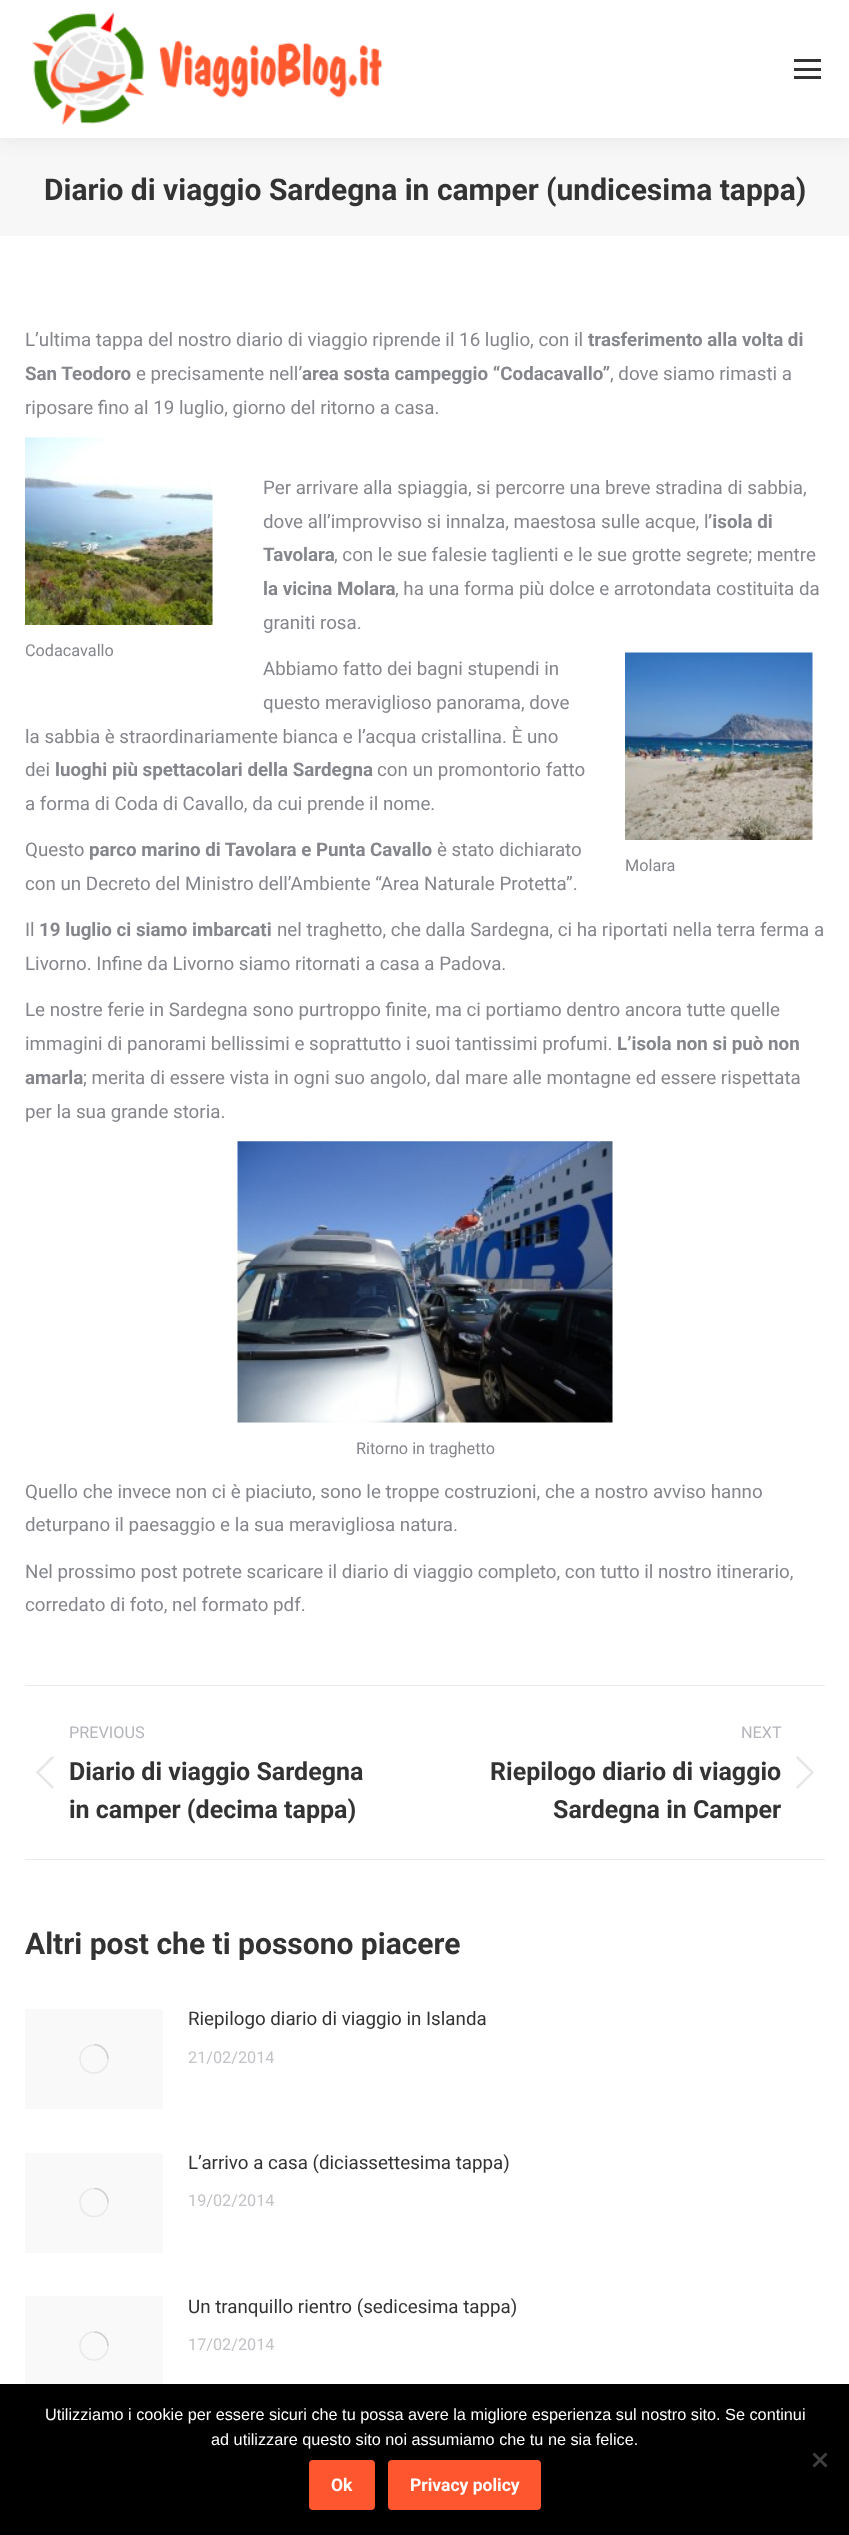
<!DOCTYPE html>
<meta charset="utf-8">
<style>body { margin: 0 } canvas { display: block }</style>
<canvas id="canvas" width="849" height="2535"></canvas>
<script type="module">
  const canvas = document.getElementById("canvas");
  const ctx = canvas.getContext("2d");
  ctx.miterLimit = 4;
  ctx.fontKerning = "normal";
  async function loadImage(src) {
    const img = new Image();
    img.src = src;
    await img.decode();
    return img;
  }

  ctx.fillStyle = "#ffffff";
  ctx.fillRect(0, 0, 849, 2535);
  ctx.fillStyle = "#f7f7f7";
  ctx.fillRect(0, 138, 849, 98);
  ctx.fillStyle = "rgba(0, 0, 0, 0.07)";
  ctx.filter = "blur(9.5px)";
  ctx.beginPath();
  ctx.rect(-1, -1, 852, 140);
  ctx.fill();
  ctx.filter = "none";
  ctx.fillStyle = "#ffffff";
  ctx.fillRect(0, 0, 849, 138);
  ctx.drawImage(await loadImage("img1.png"), 32, 12, 351, 113);
  ctx.fillStyle = "#333333";
  ctx.fillRect(794, 59, 27, 3);
  ctx.fillRect(794, 68, 27, 3);
  ctx.fillRect(794, 76, 27, 3);
  ctx.font = "bold 30px Roboto";
  ctx.fillText("Diario di viaggio Sardegna in camper (undicesima tappa)", 44, 200);
  ctx.font = "18.75px Roboto";
  ctx.fillStyle = "#85868c";
  ctx.fillText("L’ultima tappa del nostro diario di viaggio riprende il 16 luglio, con il", 25, 346);
  ctx.font = "bold 18.75px Roboto";
  ctx.fillText("trasferimento alla volta di", 588, 346);
  ctx.fillText("San Teodoro", 25, 380);
  ctx.font = "18.75px Roboto";
  ctx.fillText("e precisamente nell’", 136, 380);
  ctx.font = "bold 18.75px Roboto";
  ctx.fillText("area sosta campeggio “Codacavallo”", 302, 380);
  ctx.font = "18.75px Roboto";
  ctx.fillText(", dove siamo rimasti a", 610, 380);
  ctx.fillText("riposare fino al 19 luglio, giorno del ritorno a casa.", 25, 414);
  ctx.fillText("Per arrivare alla spiaggia, si percorre una breve stradina di sabbia,", 263, 494);
  ctx.fillText("dove all’improvviso si innalza, maestosa sulle acque, l", 263, 528);
  ctx.font = "bold 18.75px Roboto";
  ctx.fillText("’isola di", 708, 528);
  ctx.fillText("Tavolara", 263, 561);
  ctx.font = "18.75px Roboto";
  ctx.fillText(", con le sue falesie taglienti e le sue grotte segrete; mentre", 334, 561);
  ctx.font = "bold 18.75px Roboto";
  ctx.fillText("la vicina Molara", 263, 595);
  ctx.font = "18.75px Roboto";
  ctx.fillText(", ha una forma più dolce e arrotondata costituita da", 395, 595);
  ctx.fillText("graniti rosa.", 263, 629);
  ctx.drawImage(await loadImage("img2.png"), 25, 437, 188, 188);
  ctx.font = "16.25px Roboto";
  ctx.fillText("Codacavallo", 25, 656);
  ctx.font = "18.75px Roboto";
  ctx.fillText("Abbiamo fatto dei bagni stupendi in", 263, 675);
  ctx.fillText("questo meraviglioso panorama, dove", 263, 709);
  ctx.fillText("la sabbia è straordinariamente bianca e l’acqua cristallina. È uno", 25, 743);
  ctx.fillText("dei", 25, 776);
  ctx.font = "bold 18.75px Roboto";
  ctx.fillText("luoghi più spettacolari della Sardegna", 55, 776);
  ctx.font = "18.75px Roboto";
  ctx.fillText("con un promontorio fatto", 377, 776);
  ctx.fillText("a forma di Coda di Cavallo, da cui prende il nome.", 25, 810);
  ctx.fillText("Questo", 25, 856);
  ctx.font = "bold 18.75px Roboto";
  ctx.fillText("parco marino di Tavolara e Punta Cavallo", 89, 856);
  ctx.font = "18.75px Roboto";
  ctx.fillText("è stato dichiarato", 437, 856);
  ctx.fillText("con un Decreto del Ministro dell’Ambiente “Area Naturale Protetta”.", 25, 890);
  ctx.drawImage(await loadImage("img3.png"), 625, 652, 188, 188);
  ctx.font = "16.25px Roboto";
  ctx.fillText("Molara", 625, 871);
  ctx.font = "18.75px Roboto";
  ctx.fillText("Il", 25, 936);
  ctx.font = "bold 18.75px Roboto";
  ctx.fillText("19 luglio ci siamo imbarcati", 39, 936);
  ctx.font = "18.75px Roboto";
  ctx.fillText("nel traghetto, che dalla Sardegna, ci ha riportati nella terra ferma a", 277, 936);
  ctx.fillText("Livorno. Infine da Livorno siamo ritornati a casa a Padova.", 25, 970);
  ctx.fillText("Le nostre ferie in Sardegna sono purtroppo finite, ma ci portiamo dentro ancora tutte quelle", 25, 1016);
  ctx.fillText("immagini di panorami bellissimi e soprattutto i suoi tantissimi profumi.", 25, 1050);
  ctx.font = "bold 18.75px Roboto";
  ctx.fillText("L’isola non si può non", 617, 1050);
  ctx.fillText("amarla", 25, 1084);
  ctx.font = "18.75px Roboto";
  ctx.fillText("; merita di essere vista in ogni suo angolo, dal mare alle montagne ed essere rispettata", 83, 1084);
  ctx.fillText("per la sua grande storia.", 25, 1118);
  ctx.drawImage(await loadImage("img4.png"), 237, 1141, 376, 282);
  ctx.font = "16.25px Roboto";
  ctx.fillText("Ritorno in traghetto", 356, 1454);
  ctx.font = "18.75px Roboto";
  ctx.fillText("Quello che invece non ci è piaciuto, sono le troppe costruzioni, che a nostro avviso hanno", 25, 1498);
  ctx.fillText("deturpano il paesaggio e la sua meravigliosa natura.", 25, 1531);
  ctx.fillText("Nel prossimo post potrete scaricare il diario di viaggio completo, con tutto il nostro itinerario,", 25, 1578);
  ctx.fillText("corredato di foto, nel formato pdf.", 25, 1611);
  ctx.fillStyle = "#eaeaea";
  ctx.fillRect(25, 1685, 800, 1);
  ctx.fillRect(25, 1859, 800, 1);
  ctx.font = "16.25px Roboto";
  ctx.fillStyle = "#b4b5bb";
  ctx.fillText("PREVIOUS", 69, 1738);
  ctx.drawImage(await loadImage("img5.png"), 36, 1756, 18, 33);
  ctx.font = "bold 25px Roboto";
  ctx.fillStyle = "#333333";
  ctx.fillText("Diario di viaggio Sardegna", 69, 1780);
  ctx.fillText("in camper (decima tappa)", 69, 1818);
  ctx.font = "16.25px Roboto";
  ctx.fillStyle = "#b4b5bb";
  ctx.fillText("NEXT", 741, 1738);
  ctx.font = "bold 25px Roboto";
  ctx.fillStyle = "#333333";
  ctx.fillText("Riepilogo diario di viaggio", 490, 1780);
  ctx.fillText("Sardegna in Camper", 553, 1818);
  ctx.drawImage(await loadImage("img6.png"), 796, 1756, 18, 33);
  ctx.font = "bold 30px Roboto";
  ctx.fillText("Altri post che ti possono piacere", 25, 1954);
  ctx.fillStyle = "#f9f9f9";
  ctx.fillRect(25, 2009, 138, 100);
  ctx.beginPath();
  ctx.arc(94, 2059, 14, 0, Math.PI * 2);
  ctx.strokeStyle = "#e9e9ea";
  ctx.lineWidth = 1.6;
  ctx.stroke();
  ctx.beginPath();
  ctx.moveTo(108, 2059);
  ctx.bezierCurveTo(108, 2051, 101.5, 2044.5, 94, 2044.5);
  ctx.strokeStyle = "rgba(133, 134, 140, 0.25)";
  ctx.stroke();
  ctx.font = "18.75px Roboto";
  ctx.fillStyle = "#333333";
  ctx.fillText("Riepilogo diario di viaggio in Islanda", 188, 2025);
  ctx.font = "16.25px Roboto";
  ctx.fillStyle = "#c2c3c6";
  ctx.fillText("21/02/2014", 188, 2063);
  ctx.fillStyle = "#f9f9f9";
  ctx.fillRect(25, 2153, 138, 100);
  ctx.save();
  ctx.beginPath();
  ctx.rect(79, 2188, 30, 30);
  ctx.clip();
  ctx.beginPath();
  ctx.arc(94, 2202.5, 14, 0, Math.PI * 2);
  ctx.strokeStyle = "#e9e9ea";
  ctx.stroke();
  ctx.restore();
  ctx.beginPath();
  ctx.moveTo(108, 2202.5);
  ctx.bezierCurveTo(108, 2194.5, 101.5, 2188.5, 94, 2188.5);
  ctx.stroke();
  ctx.font = "18.75px Roboto";
  ctx.fillStyle = "#333333";
  ctx.fillText("L’arrivo a casa (diciassettesima tappa)", 188, 2169);
  ctx.font = "16.25px Roboto";
  ctx.fillStyle = "#c2c3c6";
  ctx.fillText("19/02/2014", 188, 2206);
  ctx.fillStyle = "#f9f9f9";
  ctx.fillRect(25, 2296, 138, 88);
  ctx.beginPath();
  ctx.arc(94, 2346, 14, 0, Math.PI * 2);
  ctx.strokeStyle = "#e9e9ea";
  ctx.stroke();
  ctx.beginPath();
  ctx.moveTo(108, 2346);
  ctx.bezierCurveTo(108, 2338.5, 101.5, 2332, 94, 2332);
  ctx.strokeStyle = "rgba(133, 134, 140, 0.25)";
  ctx.stroke();
  ctx.font = "18.75px Roboto";
  ctx.fillStyle = "#333333";
  ctx.fillText("Un tranquillo rientro (sedicesima tappa)", 188, 2313);
  ctx.font = "16.25px Roboto";
  ctx.fillStyle = "#c2c3c6";
  ctx.fillText("17/02/2014", 188, 2350);
  ctx.fillStyle = "#000000";
  ctx.fillRect(0, 2384, 849, 151);
  ctx.font = "16.25px Liberation Sans";
  ctx.fillStyle = "#ffffff";
  ctx.fillText("Utilizziamo i cookie per essere sicuri che tu possa avere la migliore esperienza sul nostro sito. Se continui", 45, 2420);
  ctx.fillText("ad utilizzare questo sito noi assumiamo che tu ne sia felice.", 211, 2445);
  ctx.fillStyle = "#404040";
  ctx.beginPath();
  ctx.moveTo(825.5, 2452.5);
  ctx.lineTo(827.5, 2454.5);
  ctx.lineTo(814.5, 2467.5);
  ctx.lineTo(812.5, 2465.5);
  ctx.closePath();
  ctx.fill();
  ctx.beginPath();
  ctx.moveTo(812.5, 2454.5);
  ctx.lineTo(814.5, 2452.5);
  ctx.lineTo(827.5, 2465.5);
  ctx.lineTo(825.5, 2467.5);
  ctx.closePath();
  ctx.fill();
  ctx.fillStyle = "#fe572f";
  ctx.beginPath();
  ctx.roundRect(309, 2460, 66, 50, 4);
  ctx.fill();
  ctx.font = "bold 17.5px Roboto";
  ctx.fillStyle = "#ffffff";
  ctx.fillText("Ok", 331, 2491);
  ctx.fillStyle = "#fe572f";
  ctx.beginPath();
  ctx.roundRect(388, 2460, 153, 50, 4);
  ctx.fill();
  ctx.fillStyle = "#ffffff";
  ctx.fillText("Privacy policy", 410, 2491);
</script>
